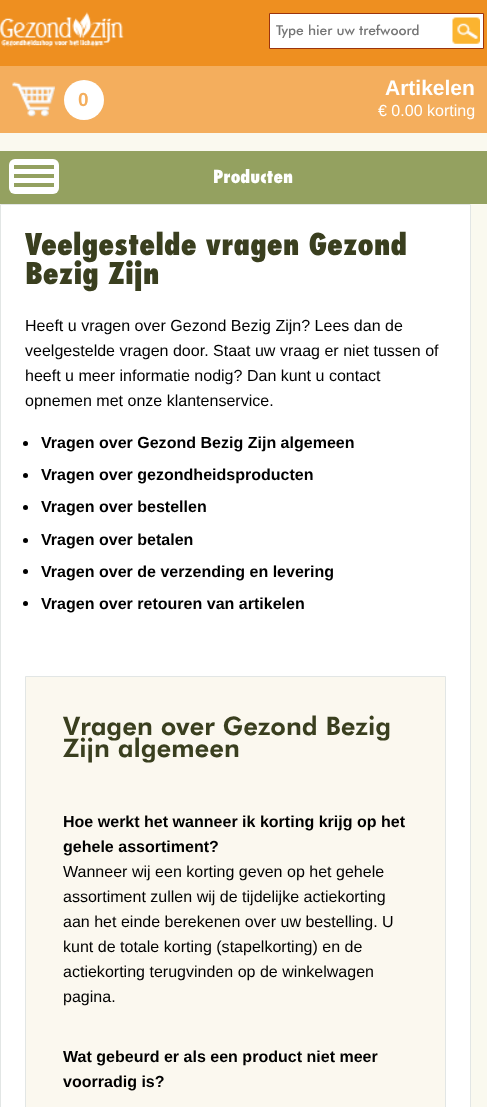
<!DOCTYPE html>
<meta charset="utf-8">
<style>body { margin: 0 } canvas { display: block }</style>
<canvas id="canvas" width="487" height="1107"></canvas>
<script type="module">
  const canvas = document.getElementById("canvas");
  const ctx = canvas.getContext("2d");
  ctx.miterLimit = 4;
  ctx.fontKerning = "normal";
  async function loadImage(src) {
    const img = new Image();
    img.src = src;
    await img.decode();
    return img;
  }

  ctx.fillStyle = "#faf9ef";
  ctx.fillRect(0, 0, 487, 1107);
  ctx.fillStyle = "#ee8f20";
  ctx.fillRect(0, 0, 487, 66);
  ctx.drawImage(await loadImage("img1.png"), 0, 12, 124, 35);
  ctx.fillStyle = "#ffffff";
  ctx.beginPath();
  ctx.rect(269.5, 13.5, 214, 35);
  ctx.fill();
  ctx.strokeStyle = "#9b340e";
  ctx.stroke();
  ctx.font = "500 13.75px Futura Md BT";
  ctx.fillStyle = "#757575";
  ctx.fillText("Type hier uw trefwoord", 276, 35);
  ctx.drawImage(await loadImage("img2.png"), 452, 17, 28, 27);
  ctx.fillStyle = "#f4ae5d";
  ctx.fillRect(0, 66, 487, 67);
  ctx.drawImage(await loadImage("img3.png"), 12, 82, 43, 35);
  ctx.fillStyle = "#ffffff";
  ctx.beginPath();
  ctx.arc(84, 100, 20, 0, Math.PI * 2);
  ctx.fill();
  ctx.font = "bold 19px Liberation Sans";
  ctx.fillStyle = "#f4ae5d";
  ctx.fillText("0", 78, 106);
  ctx.font = "bold 21px Liberation Sans";
  ctx.fillStyle = "#ffffff";
  ctx.fillText("Artikelen", 385, 95);
  ctx.font = "16.05px Liberation Sans";
  ctx.fillText("€ 0.00 korting", 378, 116);
  ctx.fillStyle = "#94a160";
  ctx.fillRect(0, 151, 487, 53);
  ctx.fillStyle = "#ffffff";
  ctx.beginPath();
  ctx.roundRect(9, 159, 50, 35, 6);
  ctx.fill();
  ctx.fillStyle = "#94a160";
  ctx.fillRect(14, 165, 40, 4);
  ctx.fillRect(14, 174, 40, 4);
  ctx.fillRect(14, 183, 40, 4);
  ctx.font = "800 17.5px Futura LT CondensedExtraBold";
  ctx.fillStyle = "#ffffff";
  ctx.fillText("Producten", 213, 183);
  ctx.beginPath();
  ctx.rect(0.5, 204.5, 470, 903);
  ctx.fill();
  ctx.strokeStyle = "#e2e6e5";
  ctx.stroke();
  ctx.font = "800 29.3px Futura LT CondensedExtraBold";
  ctx.fillStyle = "#3a3f1f";
  ctx.fillText("Veelgestelde vragen Gezond", 25, 255);
  ctx.fillText("Bezig Zijn", 25, 284);
  ctx.font = "16.05px Liberation Sans";
  ctx.fillStyle = "#000000";
  ctx.fillText("Heeft u vragen over Gezond Bezig Zijn? Lees dan de", 25, 331);
  ctx.fillText("veelgestelde vragen door. Staat uw vraag er niet tussen of", 25, 356);
  ctx.fillText("heeft u meer informatie nodig? Dan kunt u contact", 25, 381);
  ctx.fillText("opnemen met onze klantenservice.", 25, 406);
  ctx.beginPath();
  ctx.arc(25.5, 443.5, 2.5, 0, Math.PI * 2);
  ctx.fill();
  ctx.font = "bold 16.05px Liberation Sans";
  ctx.fillText("Vragen over Gezond Bezig Zijn algemeen", 41, 448);
  ctx.beginPath();
  ctx.arc(25.5, 475.5, 2.5, 0, Math.PI * 2);
  ctx.fill();
  ctx.fillText("Vragen over gezondheidsproducten", 41, 480);
  ctx.beginPath();
  ctx.arc(25.5, 507.5, 2.5, 0, Math.PI * 2);
  ctx.fill();
  ctx.fillText("Vragen over bestellen", 41, 512);
  ctx.beginPath();
  ctx.arc(25.5, 540.5, 2.5, 0, Math.PI * 2);
  ctx.fill();
  ctx.fillText("Vragen over betalen", 41, 545);
  ctx.beginPath();
  ctx.arc(25.5, 571.5, 2.5, 0, Math.PI * 2);
  ctx.fill();
  ctx.fillText("Vragen over de verzending en levering", 41, 577);
  ctx.beginPath();
  ctx.arc(25.5, 603.5, 2.5, 0, Math.PI * 2);
  ctx.fill();
  ctx.fillText("Vragen over retouren van artikelen", 41, 609);
  ctx.fillStyle = "#fbf8ef";
  ctx.beginPath();
  ctx.rect(25.5, 676.5, 420, 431);
  ctx.fill();
  ctx.stroke();
  ctx.font = "900 25.7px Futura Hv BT";
  ctx.fillStyle = "#3a3f1f";
  ctx.fillText("Vragen over Gezond Bezig", 63, 735);
  ctx.fillText("Zijn algemeen", 63, 757);
  ctx.font = "bold 16.05px Liberation Sans";
  ctx.fillStyle = "#000000";
  ctx.fillText("Hoe werkt het wanneer ik korting krijg op het", 63, 827);
  ctx.fillText("gehele assortiment?", 63, 852);
  ctx.font = "16.05px Liberation Sans";
  ctx.fillText("Wanneer wij een korting geven op het gehele", 63, 877);
  ctx.fillText("assortiment zullen wij de tijdelijke actiekorting", 63, 902);
  ctx.fillText("aan het einde berekenen over uw bestelling. U", 63, 927);
  ctx.fillText("kunt de totale korting (stapelkorting) en de", 63, 952);
  ctx.fillText("actiekorting terugvinden op de winkelwagen", 63, 977);
  ctx.fillText("pagina.", 63, 1002);
  ctx.font = "bold 16.05px Liberation Sans";
  ctx.fillText("Wat gebeurd er als een product niet meer", 63, 1062);
  ctx.fillText("voorradig is?", 63, 1087);
</script>
